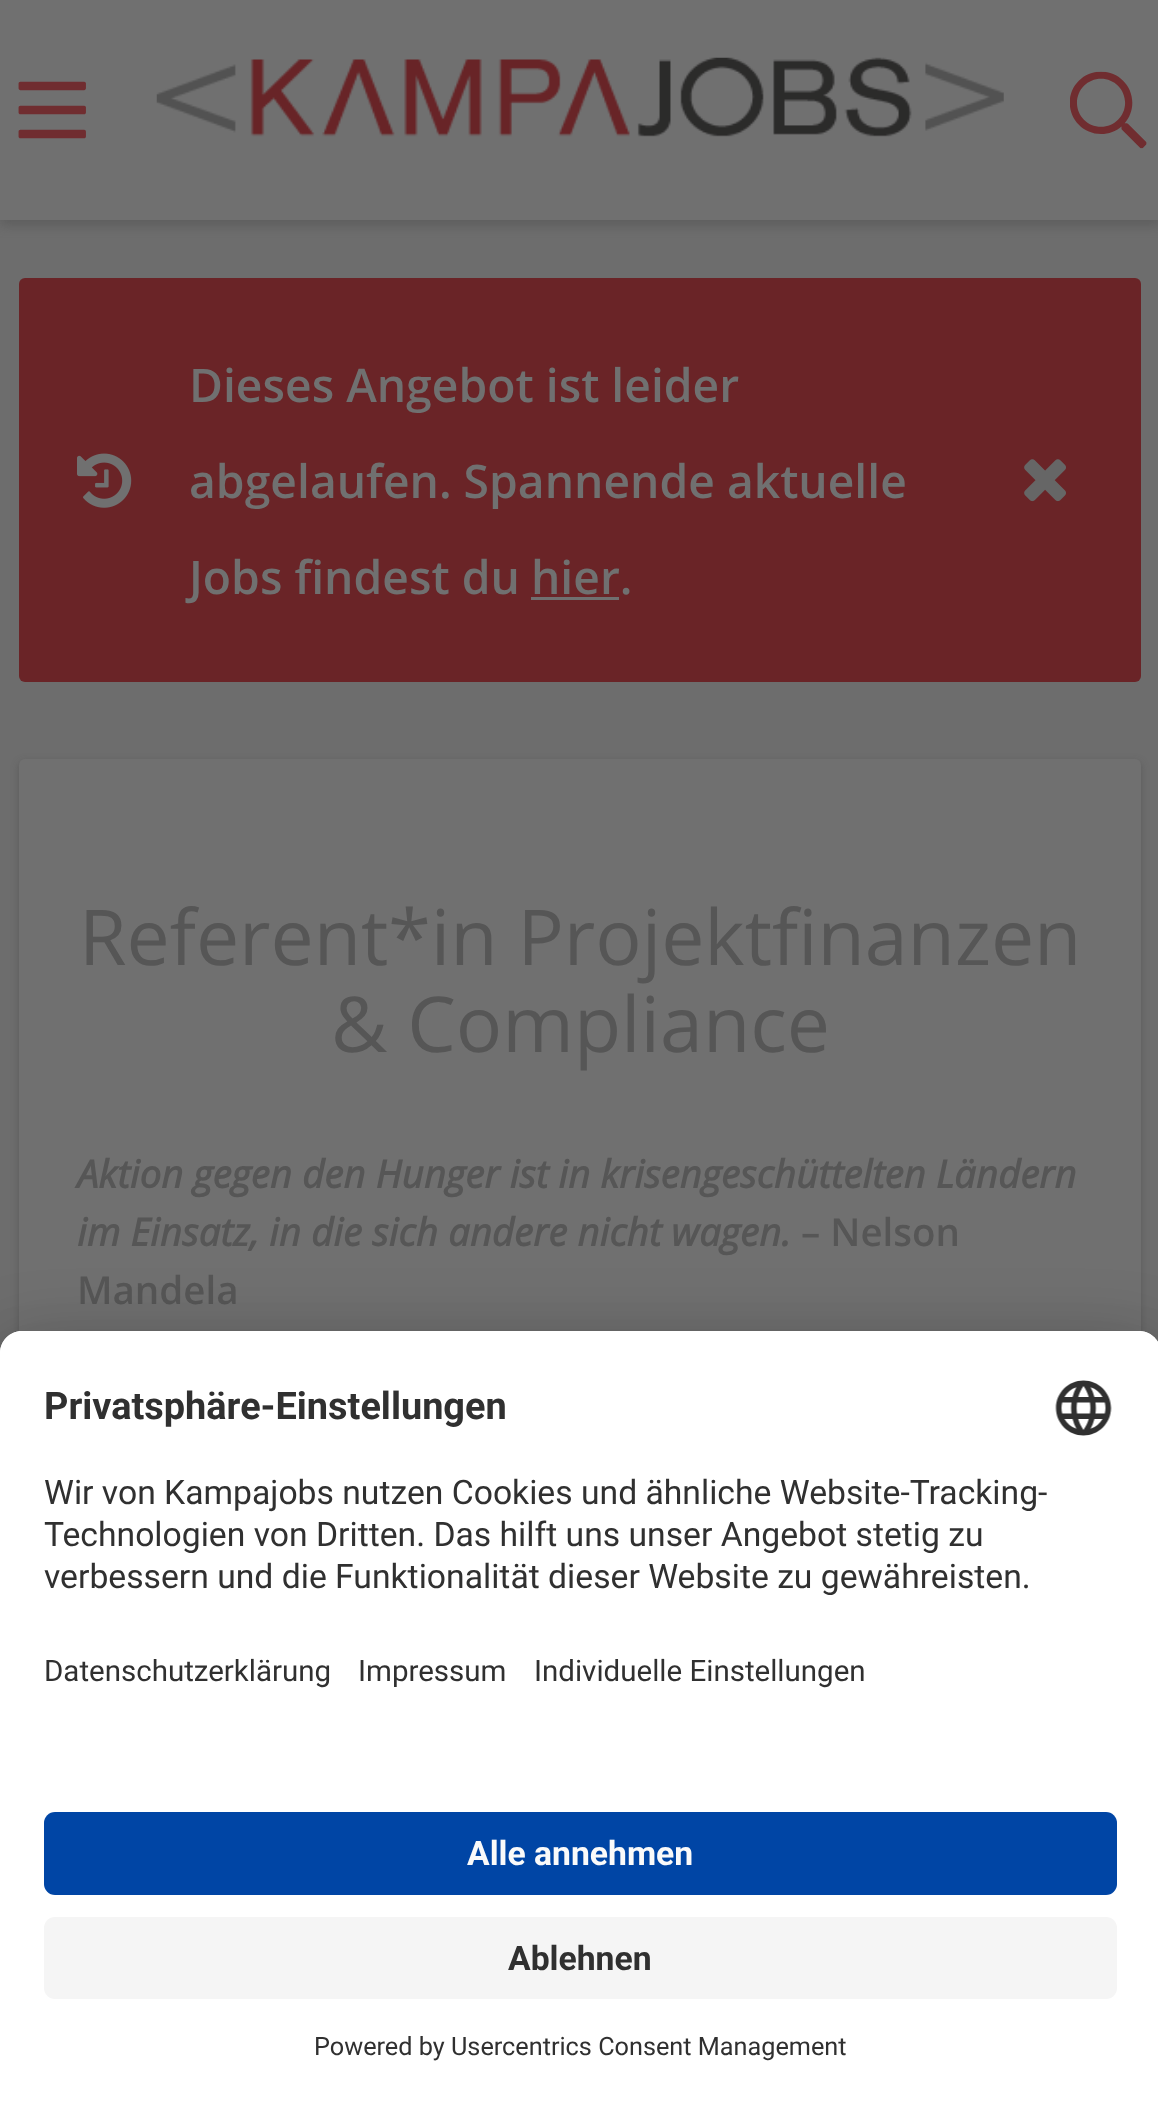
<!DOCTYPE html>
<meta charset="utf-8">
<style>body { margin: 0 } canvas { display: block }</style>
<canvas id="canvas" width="1158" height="2106"></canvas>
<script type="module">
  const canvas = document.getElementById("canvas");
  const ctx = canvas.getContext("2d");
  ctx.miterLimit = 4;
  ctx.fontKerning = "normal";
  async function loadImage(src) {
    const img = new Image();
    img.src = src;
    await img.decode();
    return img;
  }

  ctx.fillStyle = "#6d6d6d";
  ctx.fillRect(0, 0, 1158, 2106);
  ctx.fillStyle = "rgba(79, 79, 79, 0.5)";
  ctx.filter = "blur(5.5px)";
  ctx.beginPath();
  ctx.rect(0, 6, 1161, 220);
  ctx.fill();
  ctx.filter = "none";
  ctx.fillStyle = "#707070";
  ctx.fillRect(0, 0, 1158, 220);
  ctx.drawImage(await loadImage("img1.png"), 18, 81, 68, 58);
  ctx.drawImage(await loadImage("img2.png"), 156, 57, 848, 80);
  ctx.drawImage(await loadImage("img3.png"), 1070, 71, 77, 78);
  ctx.fillStyle = "#6a2427";
  ctx.beginPath();
  ctx.roundRect(19, 278, 1122, 404, 6);
  ctx.fill();
  ctx.drawImage(await loadImage("img4.png"), 77, 453, 55, 55);
  ctx.font = "600 46.25px Open Sans";
  ctx.fillStyle = "#707070";
  ctx.fillText("Dieses Angebot ist leider", 189, 402);
  ctx.fillText("abgelaufen. Spannende aktuelle", 189, 498);
  ctx.fillText("Jobs findest du", 189, 594);
  ctx.fillText("hier.", 531, 594);
  ctx.fillRect(531, 597, 88, 3);
  ctx.drawImage(await loadImage("img5.png"), 1024, 459, 42, 43);
  ctx.fillStyle = "rgba(36, 36, 36, 0.25)";
  ctx.filter = "blur(4px)";
  ctx.beginPath();
  ctx.roundRect(19, 762, 1122, 1020, 6);
  ctx.fill();
  ctx.filter = "none";
  ctx.fillStyle = "#707070";
  ctx.beginPath();
  ctx.roundRect(19, 759, 1122, 1020, 6);
  ctx.fill();
  ctx.font = "77px Open Sans";
  ctx.fillStyle = "#565656";
  ctx.fillText("Referent*in Projektfinanzen", 79, 965);
  ctx.fillText("& Compliance", 331, 1052);
  ctx.font = "italic bold 38.5px Open Sans";
  ctx.fillText("Aktion gegen den Hunger ist in krisengeschüttelten Ländern", 77, 1188);
  ctx.fillText("im Einsatz, in die sich andere nicht wagen.", 77, 1246);
  ctx.font = "600 38.5px Open Sans";
  ctx.fillText("– Nelson", 801, 1246);
  ctx.fillText("Mandela", 77, 1304);
  ctx.fillStyle = "rgba(0, 0, 0, 0.3)";
  ctx.filter = "blur(38.5px)";
  ctx.beginPath();
  ctx.roundRect(0, 1386, 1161, 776, 22);
  ctx.fill();
  ctx.filter = "none";
  ctx.fillStyle = "rgba(0, 0, 0, 0.22)";
  ctx.filter = "blur(36px)";
  ctx.beginPath();
  ctx.roundRect(0, 1345, 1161, 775, 22);
  ctx.fill();
  ctx.filter = "none";
  ctx.fillStyle = "#ffffff";
  ctx.beginPath();
  ctx.moveTo(22, 1331);
  ctx.lineTo(1139, 1331);
  ctx.bezierCurveTo(1151, 1331, 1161, 1341, 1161, 1353);
  ctx.lineTo(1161, 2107);
  ctx.lineTo(0, 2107);
  ctx.lineTo(0, 1353);
  ctx.bezierCurveTo(0, 1341, 10, 1331, 22, 1331);
  ctx.closePath();
  ctx.fill();
  ctx.beginPath();
  ctx.moveTo(22, 1331);
  ctx.lineTo(1139, 1331);
  ctx.bezierCurveTo(1151, 1331, 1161, 1341, 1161, 1353);
  ctx.lineTo(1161, 1779);
  ctx.lineTo(0, 1779);
  ctx.lineTo(0, 1353);
  ctx.bezierCurveTo(0, 1341, 10, 1331, 22, 1331);
  ctx.closePath();
  ctx.fill();
  ctx.font = "bold 37.9px Roboto";
  ctx.fillStyle = "#303030";
  ctx.fillText("Privatsphäre-Einstellungen", 44, 1419);
  ctx.drawImage(await loadImage("img6.png"), 1055, 1380, 57, 56);
  ctx.font = "33.7px Roboto";
  ctx.fillText("Wir von Kampajobs nutzen Cookies und ähnliche Website-Tracking-", 44, 1504);
  ctx.fillText("Technologien von Dritten. Das hilft uns unser Angebot stetig zu", 44, 1546);
  ctx.fillText("verbessern und die Funktionalität dieser Website zu gewähreisten.", 44, 1588);
  ctx.font = "29.5px Roboto";
  ctx.fillText("Datenschutzerklärung", 44, 1681);
  ctx.fillText("Impressum", 358, 1681);
  ctx.fillText("Individuelle Einstellungen", 534, 1681);
  ctx.fillStyle = "#0045a5";
  ctx.beginPath();
  ctx.roundRect(44, 1812, 1073, 83, 11);
  ctx.fill();
  ctx.font = "bold 33.7px Roboto";
  ctx.fillStyle = "#fafafa";
  ctx.fillText("Alle annehmen", 467, 1865);
  ctx.fillStyle = "#f5f5f5";
  ctx.beginPath();
  ctx.roundRect(44, 1917, 1073, 82, 11);
  ctx.fill();
  ctx.fillStyle = "#303030";
  ctx.fillText("Ablehnen", 508, 1970);
  ctx.font = "25.25px Roboto";
  ctx.fillText("Powered by Usercentrics Consent Management", 314, 2055);
</script>
